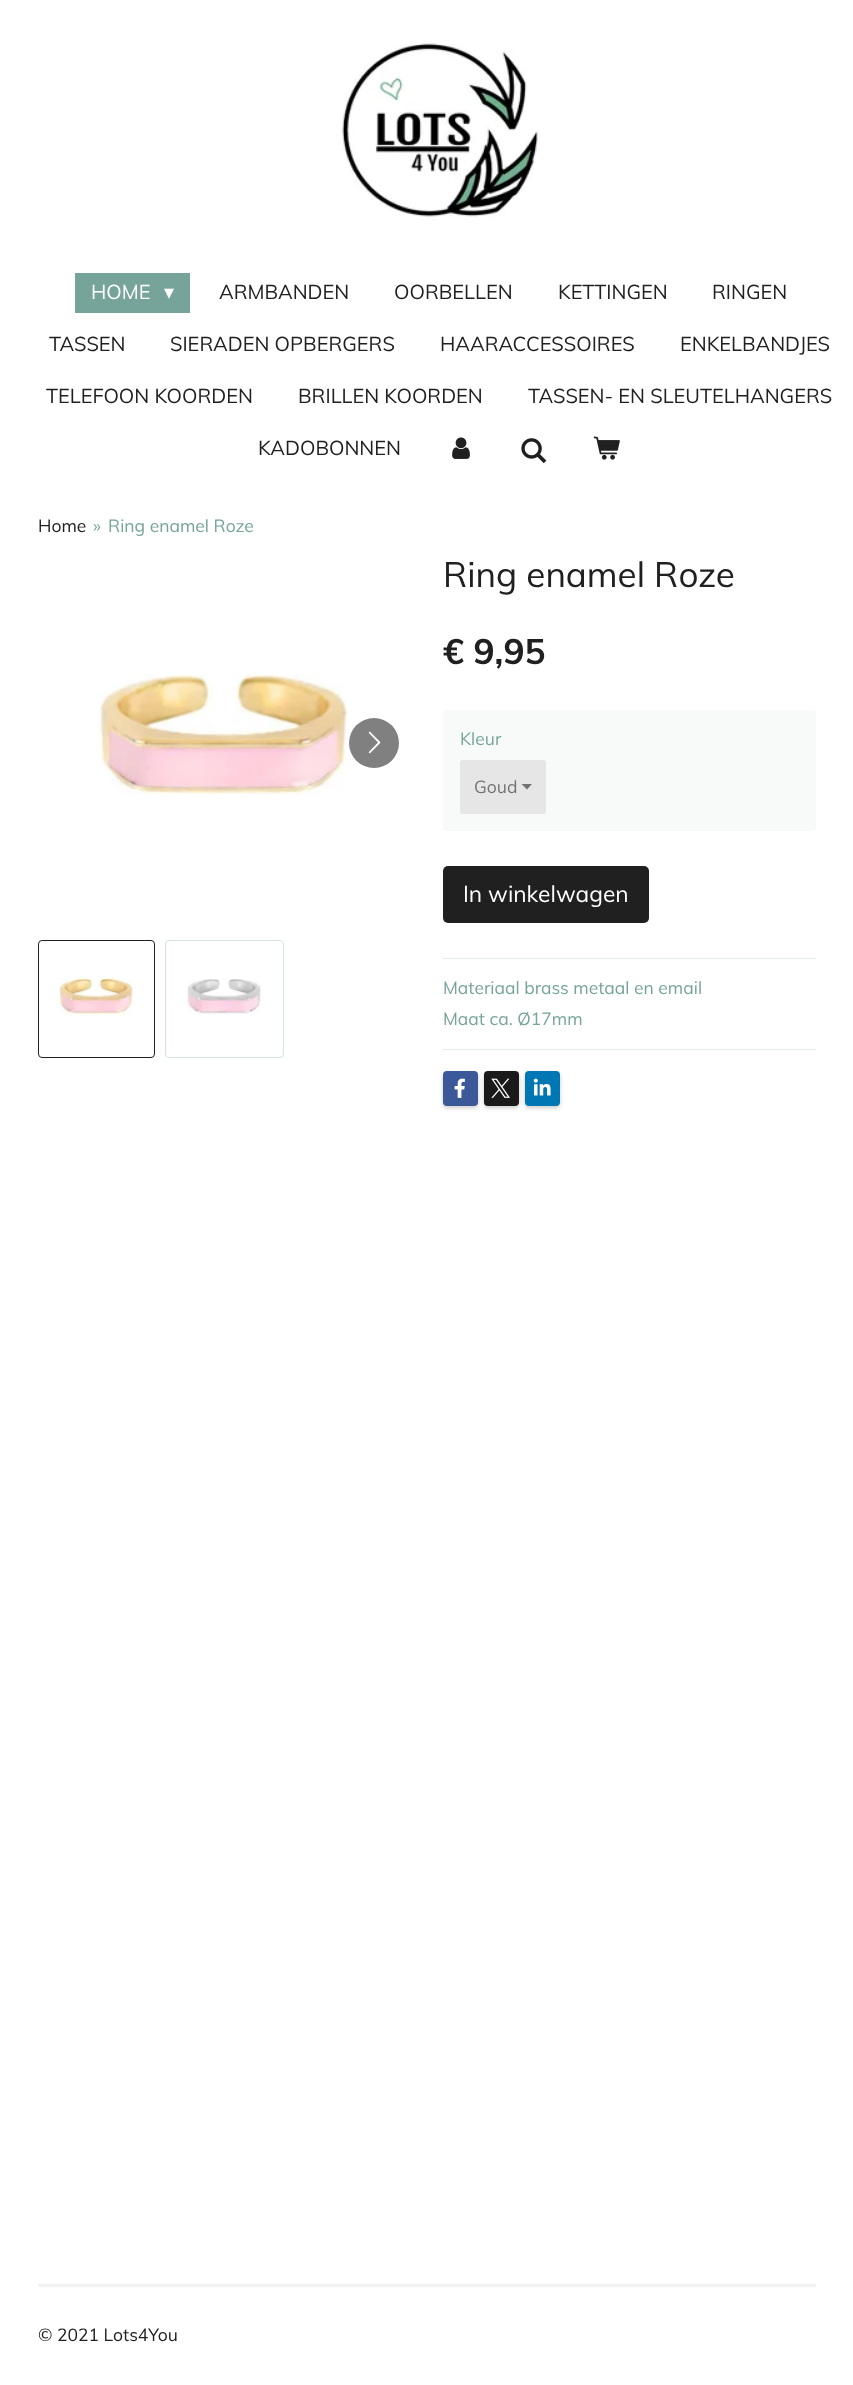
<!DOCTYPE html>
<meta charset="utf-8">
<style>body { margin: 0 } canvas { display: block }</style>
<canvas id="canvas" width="853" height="2385"></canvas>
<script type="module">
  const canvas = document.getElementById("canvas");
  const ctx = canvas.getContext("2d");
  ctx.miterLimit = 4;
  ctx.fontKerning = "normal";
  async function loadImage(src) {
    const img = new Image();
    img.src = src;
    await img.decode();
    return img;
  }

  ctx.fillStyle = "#ffffff";
  ctx.fillRect(0, 0, 853, 2385);
  ctx.drawImage(await loadImage("img1.png"), 341, 41, 199, 179);
  ctx.fillStyle = "#76a49a";
  ctx.fillRect(75, 273, 115, 40);
  ctx.font = "20px Muli";
  ctx.fillStyle = "#ffffff";
  ctx.fillText("HOME", 91, 299);
  ctx.font = "20px DejaVu Sans";
  ctx.fillText("▾", 164, 299);
  ctx.font = "20px Muli";
  ctx.fillStyle = "#202020";
  ctx.fillText("ARMBANDEN", 219, 299);
  ctx.fillText("OORBELLEN", 394, 299);
  ctx.fillText("KETTINGEN", 558, 299);
  ctx.fillText("RINGEN", 712, 299);
  ctx.fillText("TASSEN", 49, 351);
  ctx.fillText("SIERADEN OPBERGERS", 170, 351);
  ctx.fillText("HAARACCESSOIRES", 440, 351);
  ctx.fillText("ENKELBANDJES", 680, 351);
  ctx.fillText("TELEFOON KOORDEN", 46, 403);
  ctx.fillText("BRILLEN KOORDEN", 298, 403);
  ctx.fillText("TASSEN- EN SLEUTELHANGERS", 528, 403);
  ctx.fillText("KADOBONNEN", 258, 455);
  ctx.drawImage(await loadImage("img2.png"), 452, 437, 18, 22);
  ctx.drawImage(await loadImage("img3.png"), 521, 438, 26, 26);
  ctx.drawImage(await loadImage("img4.png"), 593, 436, 27, 24);
  ctx.font = "17.5px Muli";
  ctx.fillText("Home", 38, 532);
  ctx.fillStyle = "#76a49a";
  ctx.fillText("»", 93, 532);
  ctx.fillText("Ring enamel Roze", 108, 532);
  ctx.font = "35px Muli";
  ctx.fillStyle = "#202020";
  ctx.fillText("Ring enamel Roze", 443, 587);
  ctx.drawImage(await loadImage("img5.png"), 98, 674, 250, 121);
  ctx.fillStyle = "#808080";
  ctx.beginPath();
  ctx.arc(374, 743, 25, 0, Math.PI * 2);
  ctx.fill();
  ctx.drawImage(await loadImage("img6.png"), 368, 731, 13, 23);
  ctx.beginPath();
  ctx.roundRect(38.5, 940.5, 116, 117, 3.5);
  ctx.strokeStyle = "#202020";
  ctx.stroke();
  ctx.drawImage(await loadImage("img7.png"), 58, 978, 80, 37);
  ctx.beginPath();
  ctx.roundRect(165.5, 940.5, 118, 117, 3.5);
  ctx.strokeStyle = "#d6e4e1";
  ctx.stroke();
  ctx.drawImage(await loadImage("img8.png"), 187, 979, 75, 35);
  ctx.font = "bold 35px Muli";
  ctx.fillStyle = "#202020";
  ctx.fillText("€ 9,95", 443, 664);
  ctx.fillStyle = "#f8fafa";
  ctx.beginPath();
  ctx.roundRect(443, 710, 373, 121, 4);
  ctx.fill();
  ctx.font = "17.5px Muli";
  ctx.fillStyle = "#76a49a";
  ctx.fillText("Kleur", 460, 745);
  ctx.fillStyle = "#e6e6e6";
  ctx.beginPath();
  ctx.roundRect(460, 760, 86, 54, 2.5);
  ctx.fill();
  ctx.fillStyle = "#737373";
  ctx.beginPath();
  ctx.moveTo(527, 789.5);
  ctx.lineTo(521.5, 784);
  ctx.lineTo(532, 784);
  ctx.closePath();
  ctx.fill();
  ctx.fillText("Goud", 474, 793);
  ctx.fillStyle = "#202020";
  ctx.beginPath();
  ctx.roundRect(443, 866, 206, 57, 5);
  ctx.fill();
  ctx.font = "22.75px Muli";
  ctx.fillStyle = "#ffffff";
  ctx.fillText("In winkelwagen", 463, 902);
  ctx.fillStyle = "#e4edeb";
  ctx.fillRect(443, 958, 373, 1);
  ctx.font = "17.5px Muli";
  ctx.fillStyle = "#76a49a";
  ctx.fillText("Materiaal brass metaal en email", 443, 994);
  ctx.fillText("Maat ca. Ø17mm", 443, 1025);
  ctx.fillStyle = "#e4edeb";
  ctx.fillRect(443, 1049, 373, 1);
  ctx.fillStyle = "rgba(0, 0, 0, 0.2)";
  ctx.filter = "blur(2px)";
  ctx.beginPath();
  ctx.roundRect(443, 1073, 35, 35, 4);
  ctx.fill();
  ctx.filter = "none";
  ctx.fillStyle = "#3b5998";
  ctx.beginPath();
  ctx.roundRect(443, 1071, 35, 35, 4);
  ctx.fill();
  ctx.drawImage(await loadImage("img9.png"), 454, 1078, 11, 20);
  ctx.fillStyle = "rgba(0, 0, 0, 0.2)";
  ctx.filter = "blur(2px)";
  ctx.beginPath();
  ctx.roundRect(484, 1073, 35, 35, 4);
  ctx.fill();
  ctx.filter = "none";
  ctx.fillStyle = "#1a1a1a";
  ctx.beginPath();
  ctx.roundRect(484, 1071, 35, 35, 4);
  ctx.fill();
  ctx.drawImage(await loadImage("img10.png"), 491, 1078, 19, 20);
  ctx.fillStyle = "rgba(0, 0, 0, 0.2)";
  ctx.filter = "blur(2px)";
  ctx.beginPath();
  ctx.roundRect(525, 1073, 35, 35, 4);
  ctx.fill();
  ctx.filter = "none";
  ctx.fillStyle = "#0077b5";
  ctx.beginPath();
  ctx.roundRect(525, 1071, 35, 35, 4);
  ctx.fill();
  ctx.drawImage(await loadImage("img11.png"), 533, 1078, 18, 18);
  ctx.fillStyle = "#f2f2f2";
  ctx.fillRect(38, 2284, 778, 3);
  ctx.fillStyle = "#202020";
  ctx.fillText("© 2021 Lots4You", 38, 2341);
</script>
